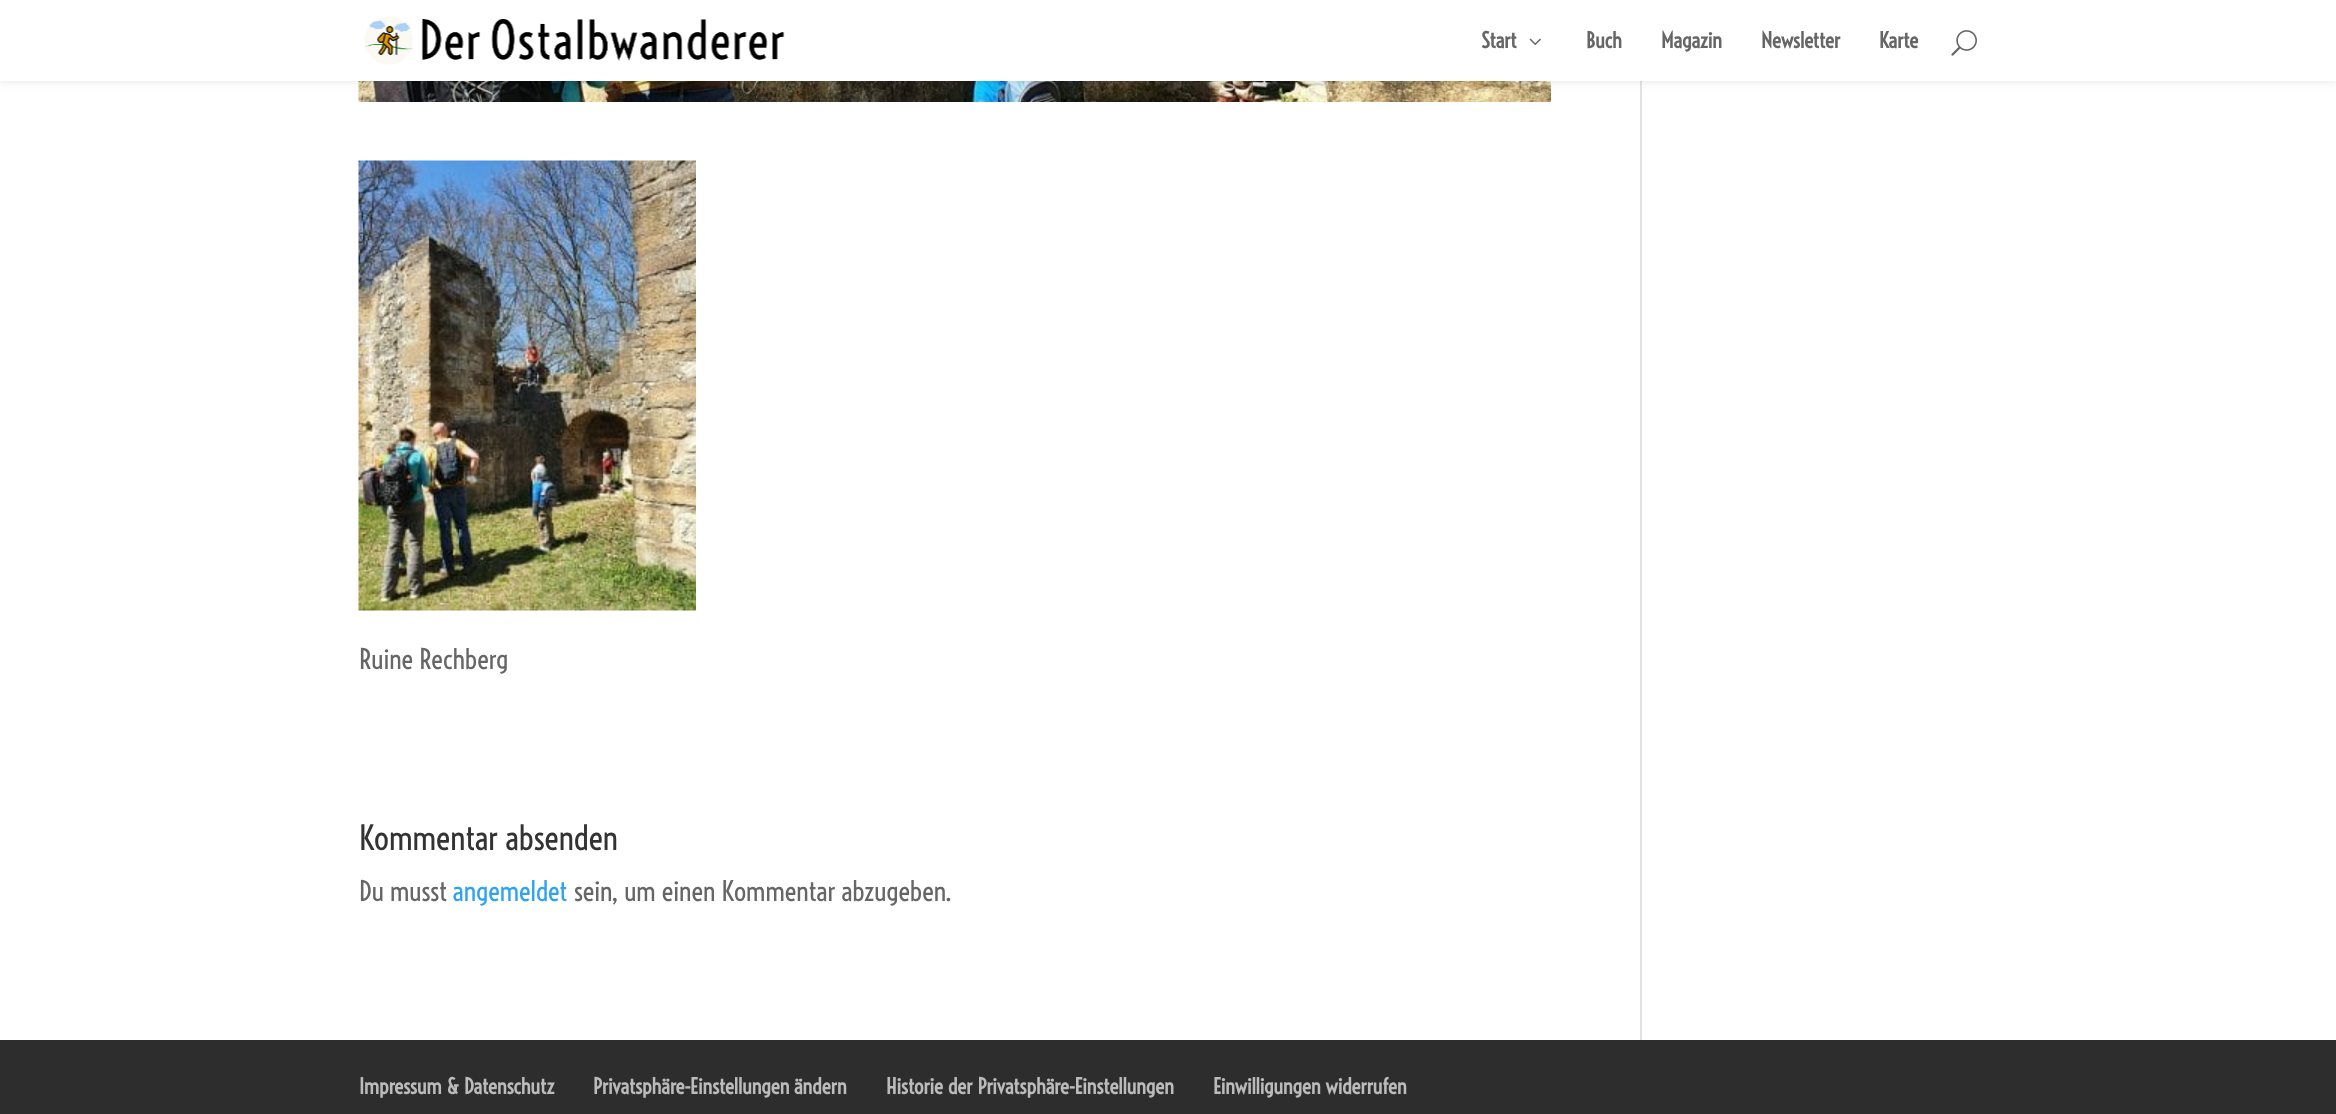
<!DOCTYPE html>
<meta charset="utf-8">
<style>body { margin: 0 } canvas { display: block }</style>
<canvas id="canvas" width="2336" height="1114"></canvas>
<script type="module">
  const canvas = document.getElementById("canvas");
  const ctx = canvas.getContext("2d");
  ctx.miterLimit = 4;
  ctx.fontKerning = "normal";
  async function loadImage(src) {
    const img = new Image();
    img.src = src;
    await img.decode();
    return img;
  }

  ctx.fillStyle = "#ffffff";
  ctx.fillRect(0, 0, 2336, 1114);
  ctx.drawImage(await loadImage("img4.png"), 358, 81, 1193, 21);
  ctx.fillStyle = "#e2e2e2";
  ctx.fillRect(1640, 81, 2, 959);
  ctx.fillStyle = "rgba(0, 0, 0, 0.1)";
  ctx.filter = "blur(5px)";
  ctx.beginPath();
  ctx.rect(0, 0, 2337, 81);
  ctx.fill();
  ctx.filter = "none";
  ctx.fillStyle = "#ffffff";
  ctx.fillRect(0, 0, 2336, 81);
  ctx.drawImage(await loadImage("img1.png"), 364, 16, 421, 49);
  ctx.font = "bold 21px Voltaire";
  ctx.fillStyle = "#666666";
  ctx.fillText("Start", 1481, 48);
  ctx.drawImage(await loadImage("img2.png"), 1529, 38, 12, 7);
  ctx.fillText("Buch", 1586, 48);
  ctx.fillText("Magazin", 1661, 48);
  ctx.fillText("Newsletter", 1761, 48);
  ctx.fillText("Karte", 1879, 48);
  ctx.drawImage(await loadImage("img3.png"), 1951, 30, 26, 26);
  ctx.drawImage(await loadImage("img5.png"), 358, 160, 338, 451);
  ctx.font = "27px Voltaire";
  ctx.fillText("Ruine Rechberg", 359, 669);
  ctx.font = "33px Voltaire";
  ctx.fillStyle = "#333333";
  ctx.fillText("Kommentar absenden", 359, 850);
  ctx.font = "27px Voltaire";
  ctx.fillStyle = "#666666";
  ctx.fillText("Du musst", 359, 901);
  ctx.fillStyle = "#2ea3f2";
  ctx.fillText("angemeldet", 453, 901);
  ctx.fillStyle = "#666666";
  ctx.fillText("sein, um einen Kommentar abzugeben.", 574, 901);
  ctx.fillStyle = "#2d2d2d";
  ctx.fillRect(0, 1040, 2336, 74);
  ctx.font = "bold 21px Voltaire";
  ctx.fillStyle = "#bbbbbb";
  ctx.fillText("Impressum & Datenschutz", 359, 1094);
  ctx.fillText("Privatsphäre-Einstellungen ändern", 593, 1094);
  ctx.fillText("Historie der Privatsphäre-Einstellungen", 886, 1094);
  ctx.fillText("Einwilligungen widerrufen", 1213, 1094);
</script>
